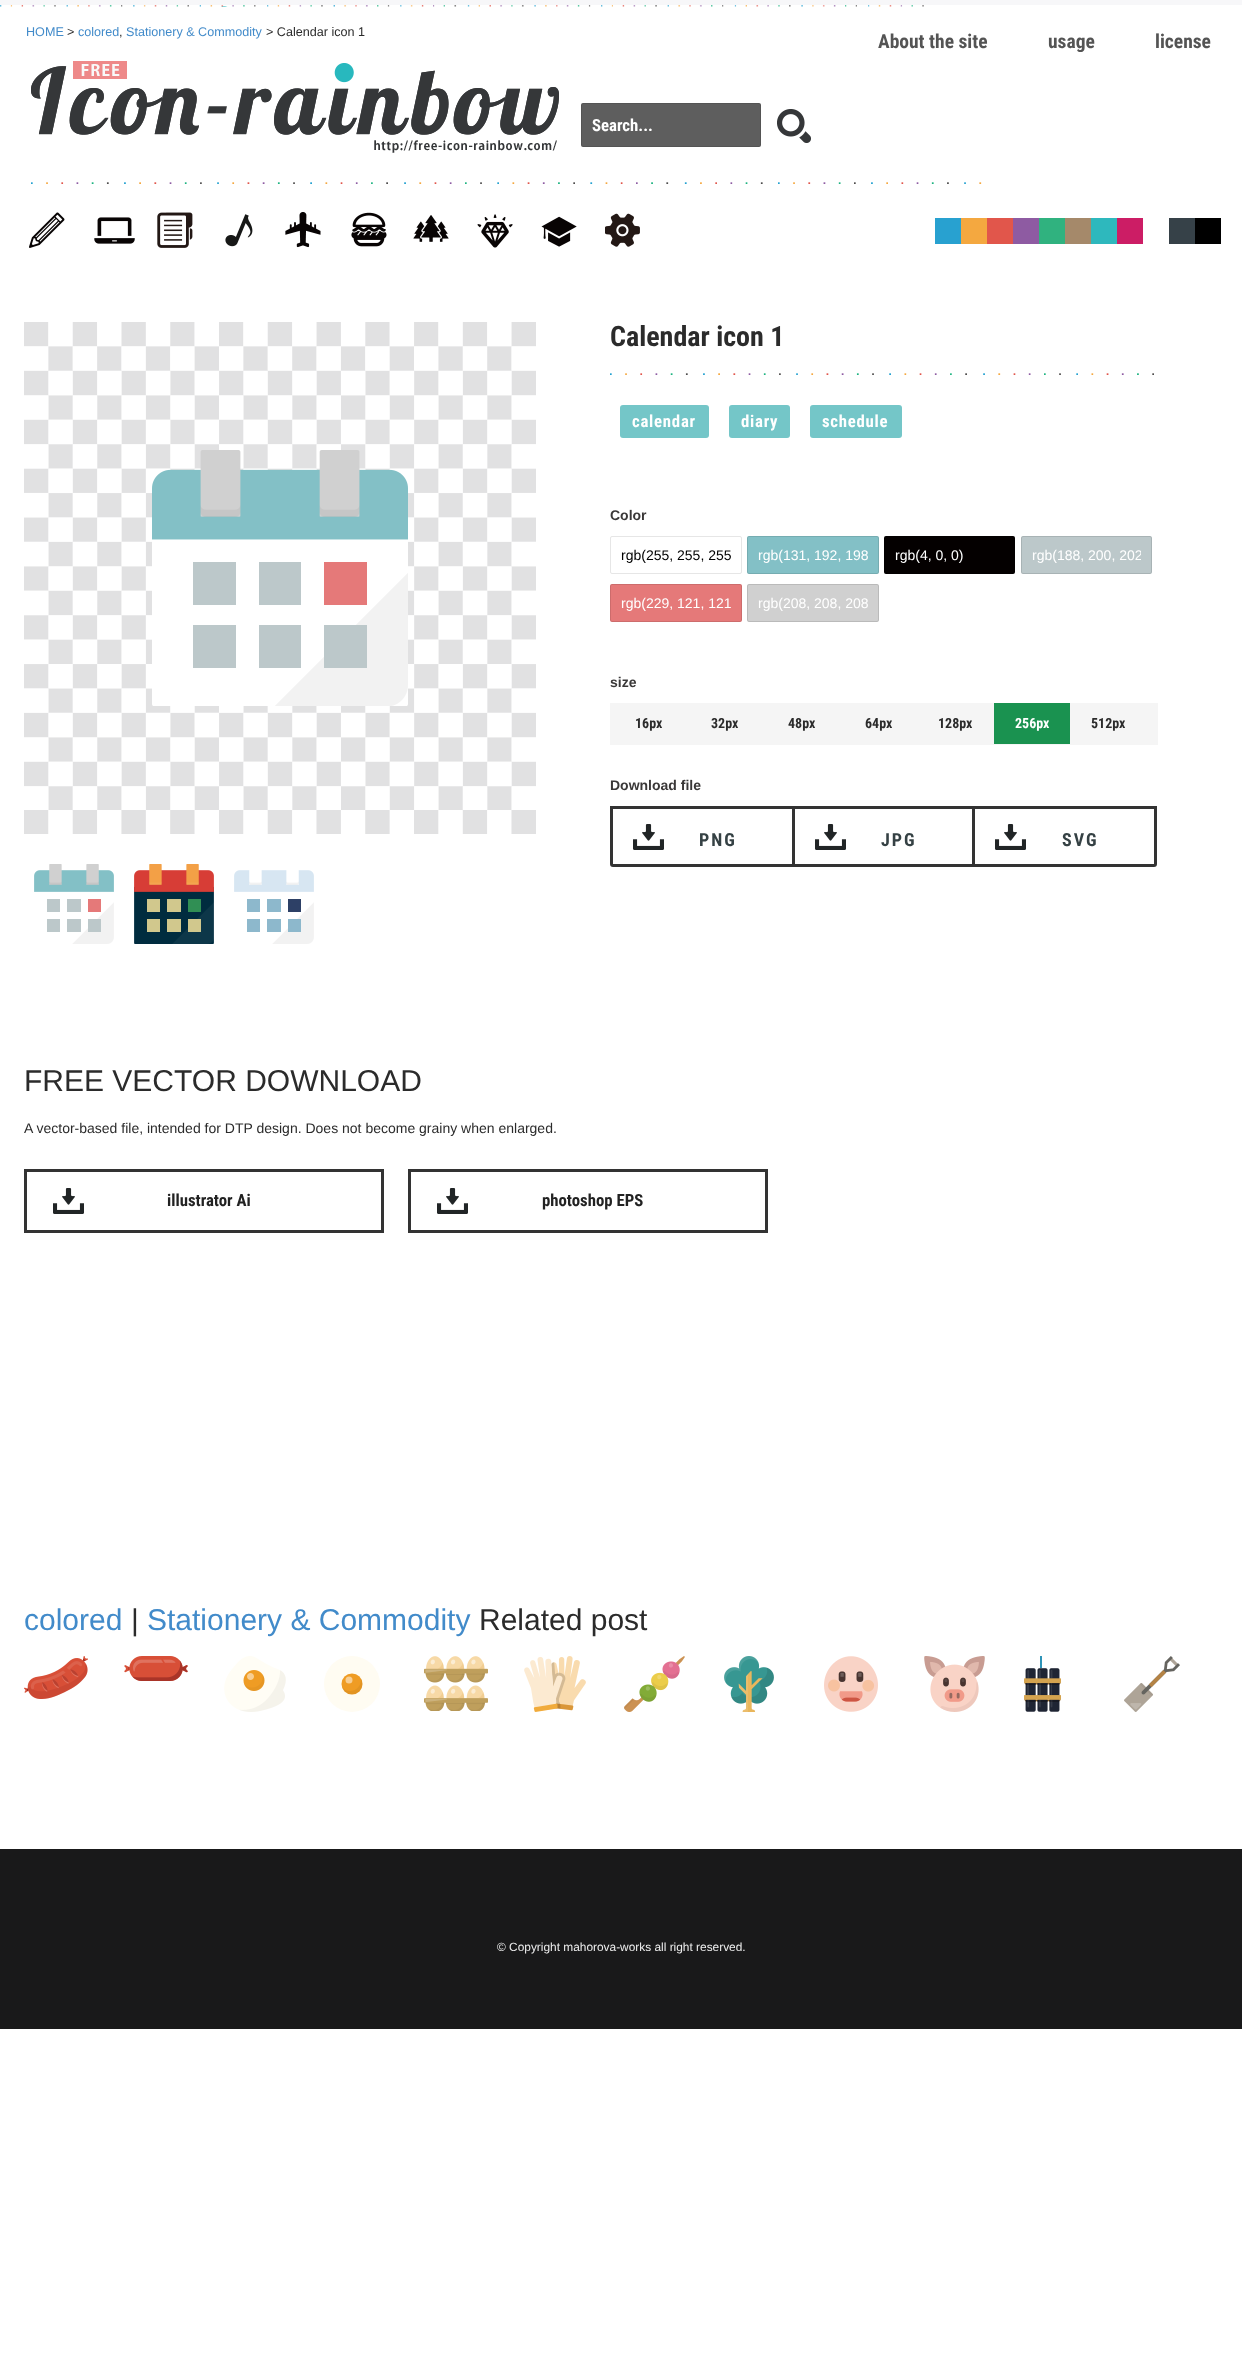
<!DOCTYPE html>
<meta charset="utf-8">
<style>body { margin: 0 } canvas { display: block }</style>
<canvas id="canvas" width="1242" height="2375"></canvas>
<script type="module">
  const canvas = document.getElementById("canvas");
  const ctx = canvas.getContext("2d");
  ctx.miterLimit = 4;
  ctx.fontKerning = "normal";
  async function loadImage(src) {
    const img = new Image();
    img.src = src;
    await img.decode();
    return img;
  }

  ctx.fillStyle = "#ffffff";
  ctx.fillRect(0, 0, 1242, 2375);
  ctx.drawImage(await loadImage("img1.png"), 0, 0, 1242, 7);
  ctx.font = "12.6px Liberation Sans";
  ctx.fillStyle = "#428bca";
  ctx.fillText("HOME", 26, 36);
  ctx.fillStyle = "#2b2b2b";
  ctx.fillText(">", 67, 36);
  ctx.fillStyle = "#428bca";
  ctx.fillText("colored", 78, 36);
  ctx.fillStyle = "#2b2b2b";
  ctx.fillText(",", 119, 36);
  ctx.fillStyle = "#428bca";
  ctx.fillText("Stationery & Commodity", 126, 36);
  ctx.fillStyle = "#2b2b2b";
  ctx.fillText("> Calendar icon 1", 266, 36);
  ctx.font = "bold 19.5px Roboto Condensed";
  ctx.fillStyle = "#545454";
  ctx.fillText("About the site", 878, 48);
  ctx.fillText("usage", 1048, 48);
  ctx.fillText("license", 1155, 48);
  ctx.drawImage(await loadImage("img2.png"), 31, 61, 528, 92);
  ctx.drawImage(await loadImage("img3.png"), 31, 182, 951, 2);
  ctx.fillStyle = "#5e5e5e";
  ctx.beginPath();
  ctx.roundRect(581, 103, 180, 44, 2);
  ctx.fill();
  ctx.beginPath();
  ctx.roundRect(581.5, 103.5, 179, 43, 1.5);
  ctx.strokeStyle = "rgba(0, 0, 0, 0.1)";
  ctx.stroke();
  ctx.font = "bold 16.75px Roboto Condensed";
  ctx.fillStyle = "#ffffff";
  ctx.fillText("Search...", 592, 131);
  ctx.drawImage(await loadImage("img4.png"), 777, 109, 34, 34);
  ctx.drawImage(await loadImage("img5.png"), 29, 212, 36, 36);
  ctx.drawImage(await loadImage("img6.png"), 94, 217, 41, 27);
  ctx.drawImage(await loadImage("img7.png"), 157, 212, 36, 36);
  ctx.drawImage(await loadImage("img8.png"), 225, 214, 28, 33);
  ctx.drawImage(await loadImage("img9.png"), 285, 212, 36, 36);
  ctx.drawImage(await loadImage("img10.png"), 351, 212, 36, 35);
  ctx.drawImage(await loadImage("img11.png"), 413, 215, 36, 27);
  ctx.drawImage(await loadImage("img12.png"), 477, 214, 36, 34);
  ctx.drawImage(await loadImage("img13.png"), 541, 216, 36, 31);
  ctx.drawImage(await loadImage("img14.png"), 605, 213, 35, 34);
  ctx.fillStyle = "#28a1d0";
  ctx.fillRect(935, 218, 26, 26);
  ctx.fillStyle = "#f4a840";
  ctx.fillRect(961, 218, 26, 26);
  ctx.fillStyle = "#e1564b";
  ctx.fillRect(987, 218, 26, 26);
  ctx.fillStyle = "#8e5ba2";
  ctx.fillRect(1013, 218, 26, 26);
  ctx.fillStyle = "#30b27f";
  ctx.fillRect(1039, 218, 26, 26);
  ctx.fillStyle = "#a5896a";
  ctx.fillRect(1065, 218, 26, 26);
  ctx.fillStyle = "#2eb8bd";
  ctx.fillRect(1091, 218, 26, 26);
  ctx.fillStyle = "#cc1d65";
  ctx.fillRect(1117, 218, 26, 26);
  ctx.fillStyle = "#364148";
  ctx.fillRect(1169, 218, 26, 26);
  ctx.fillStyle = "#000000";
  ctx.fillRect(1195, 218, 26, 26);
  ctx.drawImage(await loadImage("img15.png"), 24, 322, 512, 512);
  ctx.drawImage(await loadImage("img16.png"), 152, 450, 256, 256);
  ctx.drawImage(await loadImage("img17.png"), 34, 864, 80, 80);
  ctx.drawImage(await loadImage("img18.png"), 134, 864, 80, 80);
  ctx.drawImage(await loadImage("img19.png"), 234, 870, 80, 74);
  ctx.font = "bold 28px Roboto Condensed";
  ctx.fillStyle = "#2b2b2b";
  ctx.fillText("Calendar icon 1", 610, 346);
  ctx.drawImage(await loadImage("img20.png"), 610, 373, 544, 2);
  ctx.fillStyle = "#74c6c8";
  ctx.beginPath();
  ctx.roundRect(620, 405, 89, 33, 3);
  ctx.fill();
  ctx.letterSpacing = "0.75px";
  ctx.font = "bold 16.75px Roboto Condensed";
  ctx.fillStyle = "#ffffff";
  ctx.fillText("calendar", 632, 427);
  ctx.fillStyle = "#74c6c8";
  ctx.beginPath();
  ctx.roundRect(729, 405, 61, 33, 3);
  ctx.fill();
  ctx.fillStyle = "#ffffff";
  ctx.fillText("diary", 741, 427);
  ctx.fillStyle = "#74c6c8";
  ctx.beginPath();
  ctx.roundRect(810, 405, 92, 33, 3);
  ctx.fill();
  ctx.fillStyle = "#ffffff";
  ctx.fillText("schedule", 822, 427);
  ctx.letterSpacing = "0px";
  ctx.font = "bold 14px Liberation Sans";
  ctx.fillStyle = "#3a3838";
  ctx.fillText("Color", 610, 520);
  ctx.beginPath();
  ctx.roundRect(610.5, 536.5, 131, 37, 1.5);
  ctx.strokeStyle = "#e6e6e6";
  ctx.stroke();
  ctx.font = "14px Liberation Sans";
  ctx.fillStyle = "#000000";
  ctx.fillText("rgb(255, 255, 255", 621, 560);
  ctx.fillStyle = "#83c0c6";
  ctx.beginPath();
  ctx.roundRect(747, 536, 132, 38, 2);
  ctx.fill();
  ctx.beginPath();
  ctx.roundRect(747.5, 536.5, 131, 37, 1.5);
  ctx.strokeStyle = "rgba(0, 0, 0, 0.1)";
  ctx.stroke();
  ctx.fillStyle = "#ffffff";
  ctx.fillText("rgb(131, 192, 198", 758, 560);
  ctx.fillStyle = "#040000";
  ctx.beginPath();
  ctx.roundRect(884, 536, 131, 38, 2);
  ctx.fill();
  ctx.beginPath();
  ctx.roundRect(884.5, 536.5, 130, 37, 1.5);
  ctx.stroke();
  ctx.fillStyle = "#ffffff";
  ctx.fillText("rgb(4, 0, 0)", 895, 560);
  ctx.fillStyle = "#bcc8ca";
  ctx.beginPath();
  ctx.roundRect(1021, 536, 131, 38, 2);
  ctx.fill();
  ctx.beginPath();
  ctx.roundRect(1021.5, 536.5, 130, 37, 1.5);
  ctx.stroke();
  ctx.save();
  ctx.beginPath();
  ctx.rect(1032, 547, 109, 16);
  ctx.clip();
  ctx.fillStyle = "#ffffff";
  ctx.fillText("rgb(188, 200, 202", 1032, 560);
  ctx.restore();
  ctx.fillStyle = "#e57979";
  ctx.beginPath();
  ctx.roundRect(610, 584, 132, 38, 2);
  ctx.fill();
  ctx.beginPath();
  ctx.roundRect(610.5, 584.5, 131, 37, 1.5);
  ctx.stroke();
  ctx.fillStyle = "#ffffff";
  ctx.fillText("rgb(229, 121, 121", 621, 608);
  ctx.fillStyle = "#d0d0d0";
  ctx.beginPath();
  ctx.roundRect(747, 584, 132, 38, 2);
  ctx.fill();
  ctx.beginPath();
  ctx.roundRect(747.5, 584.5, 131, 37, 1.5);
  ctx.stroke();
  ctx.fillStyle = "#ffffff";
  ctx.fillText("rgb(208, 208, 208", 758, 608);
  ctx.font = "bold 14px Liberation Sans";
  ctx.fillStyle = "#3a3838";
  ctx.fillText("size", 610, 687);
  ctx.fillStyle = "#f5f5f5";
  ctx.fillRect(610, 703, 548, 42);
  ctx.font = "bold 14px Roboto Condensed";
  ctx.fillStyle = "#2b2b2b";
  ctx.fillText("16px", 635, 728);
  ctx.fillText("32px", 711, 728);
  ctx.fillText("48px", 788, 728);
  ctx.fillText("64px", 865, 728);
  ctx.fillText("128px", 938, 728);
  ctx.fillStyle = "#1a9250";
  ctx.fillRect(994, 703, 76, 41);
  ctx.fillStyle = "#ffffff";
  ctx.fillText("256px", 1015, 728);
  ctx.fillStyle = "#2b2b2b";
  ctx.fillText("512px", 1091, 728);
  ctx.font = "bold 14px Liberation Sans";
  ctx.fillStyle = "#3a3838";
  ctx.fillText("Download file", 610, 790);
  ctx.drawImage(await loadImage("img21.png"), 633, 824, 31, 26);
  ctx.fillStyle = "#333333";
  ctx.beginPath();
  ctx.moveTo(610, 806);
  ctx.lineTo(792, 806);
  ctx.lineTo(792, 867);
  ctx.lineTo(613, 867);
  ctx.bezierCurveTo(611, 867, 610, 866, 610, 864);
  ctx.closePath();
  ctx.moveTo(613, 809);
  ctx.lineTo(792, 809);
  ctx.lineTo(792, 864);
  ctx.lineTo(613, 864);
  ctx.closePath();
  ctx.fill("evenodd");
  ctx.letterSpacing = "2px";
  ctx.font = "bold 18px Roboto Condensed";
  ctx.fillStyle = "#354144";
  ctx.fillText("PNG", 699, 846);
  ctx.drawImage(await loadImage("img21.png"), 815, 824, 31, 26);
  ctx.strokeStyle = "#333333";
  ctx.lineWidth = 3;
  ctx.strokeRect(793.5, 807.5, 180, 58);
  ctx.fillText("JPG", 881, 846);
  ctx.drawImage(await loadImage("img21.png"), 995, 824, 31, 26);
  ctx.fillStyle = "#333333";
  ctx.beginPath();
  ctx.moveTo(975, 806);
  ctx.lineTo(1157, 806);
  ctx.lineTo(1157, 864);
  ctx.bezierCurveTo(1157, 866, 1156, 867, 1154, 867);
  ctx.lineTo(975, 867);
  ctx.closePath();
  ctx.moveTo(975, 809);
  ctx.lineTo(1154, 809);
  ctx.lineTo(1154, 864);
  ctx.lineTo(975, 864);
  ctx.closePath();
  ctx.fill("evenodd");
  ctx.fillStyle = "#354144";
  ctx.fillText("SVG", 1062, 846);
  ctx.letterSpacing = "0px";
  ctx.font = "30px Liberation Sans";
  ctx.fillStyle = "#2b2b2b";
  ctx.fillText("FREE VECTOR DOWNLOAD", 24, 1091);
  ctx.font = "14px Liberation Sans";
  ctx.fillText("A vector-based file, intended for DTP design. Does not become grainy when enlarged.", 24, 1133);
  ctx.drawImage(await loadImage("img21.png"), 53, 1188, 31, 26);
  ctx.strokeRect(25.5, 1170.5, 357, 61);
  ctx.font = "bold 16.75px Roboto Condensed";
  ctx.fillStyle = "#222222";
  ctx.fillText("illustrator Ai", 167, 1206);
  ctx.drawImage(await loadImage("img21.png"), 437, 1188, 31, 26);
  ctx.strokeRect(409.5, 1170.5, 357, 61);
  ctx.fillText("photoshop EPS", 542, 1206);
  ctx.font = "30px Liberation Sans";
  ctx.fillStyle = "#428bca";
  ctx.fillText("colored", 24, 1630);
  ctx.fillStyle = "#2b2b2b";
  ctx.fillText("|", 131, 1630);
  ctx.fillStyle = "#428bca";
  ctx.fillText("Stationery & Commodity", 147, 1630);
  ctx.fillStyle = "#2b2b2b";
  ctx.fillText("Related post", 479, 1630);
  ctx.drawImage(await loadImage("img22.png"), 24, 1656, 64, 43);
  ctx.drawImage(await loadImage("img23.png"), 124, 1656, 64, 25);
  ctx.drawImage(await loadImage("img24.png"), 224, 1656, 62, 56);
  ctx.fillStyle = "#fffcf2";
  ctx.beginPath();
  ctx.arc(352, 1684, 28, 0, Math.PI * 2);
  ctx.fill();
  ctx.fillStyle = "#ef9c24";
  ctx.beginPath();
  ctx.arc(352, 1684, 10.5, 0, Math.PI * 2);
  ctx.fill();
  ctx.fillStyle = "rgba(4, 0, 0, 0.05)";
  ctx.beginPath();
  ctx.moveTo(362.5, 1684);
  ctx.bezierCurveTo(362.5, 1696, 345, 1698.5, 342, 1687);
  ctx.bezierCurveTo(349, 1696, 363.5, 1688.5, 360.5, 1677.5);
  ctx.bezierCurveTo(362, 1679.5, 362.5, 1681.5, 362.5, 1684);
  ctx.closePath();
  ctx.fill();
  ctx.fillStyle = "#f7ce93";
  ctx.beginPath();
  ctx.arc(349, 1680, 3.5, 0, Math.PI * 2);
  ctx.fill();
  ctx.drawImage(await loadImage("img25.png"), 424, 1656, 64, 55);
  ctx.drawImage(await loadImage("img26.png"), 524, 1656, 62, 56);
  ctx.drawImage(await loadImage("img27.png"), 624, 1656, 61, 56);
  ctx.drawImage(await loadImage("img28.png"), 724, 1656, 50, 56);
  ctx.drawImage(await loadImage("img29.png"), 824, 1656, 54, 56);
  ctx.drawImage(await loadImage("img30.png"), 924, 1656, 61, 56);
  ctx.drawImage(await loadImage("img31.png"), 1024, 1656, 37, 56);
  ctx.drawImage(await loadImage("img32.png"), 1124, 1656, 56, 56);
  ctx.fillStyle = "#19191a";
  ctx.fillRect(0, 1849, 1242, 180);
  ctx.font = "11.9px Liberation Sans";
  ctx.fillStyle = "#eeeeee";
  ctx.fillText("© Copyright mahorova-works all right reserved.", 497, 1951);
</script>
